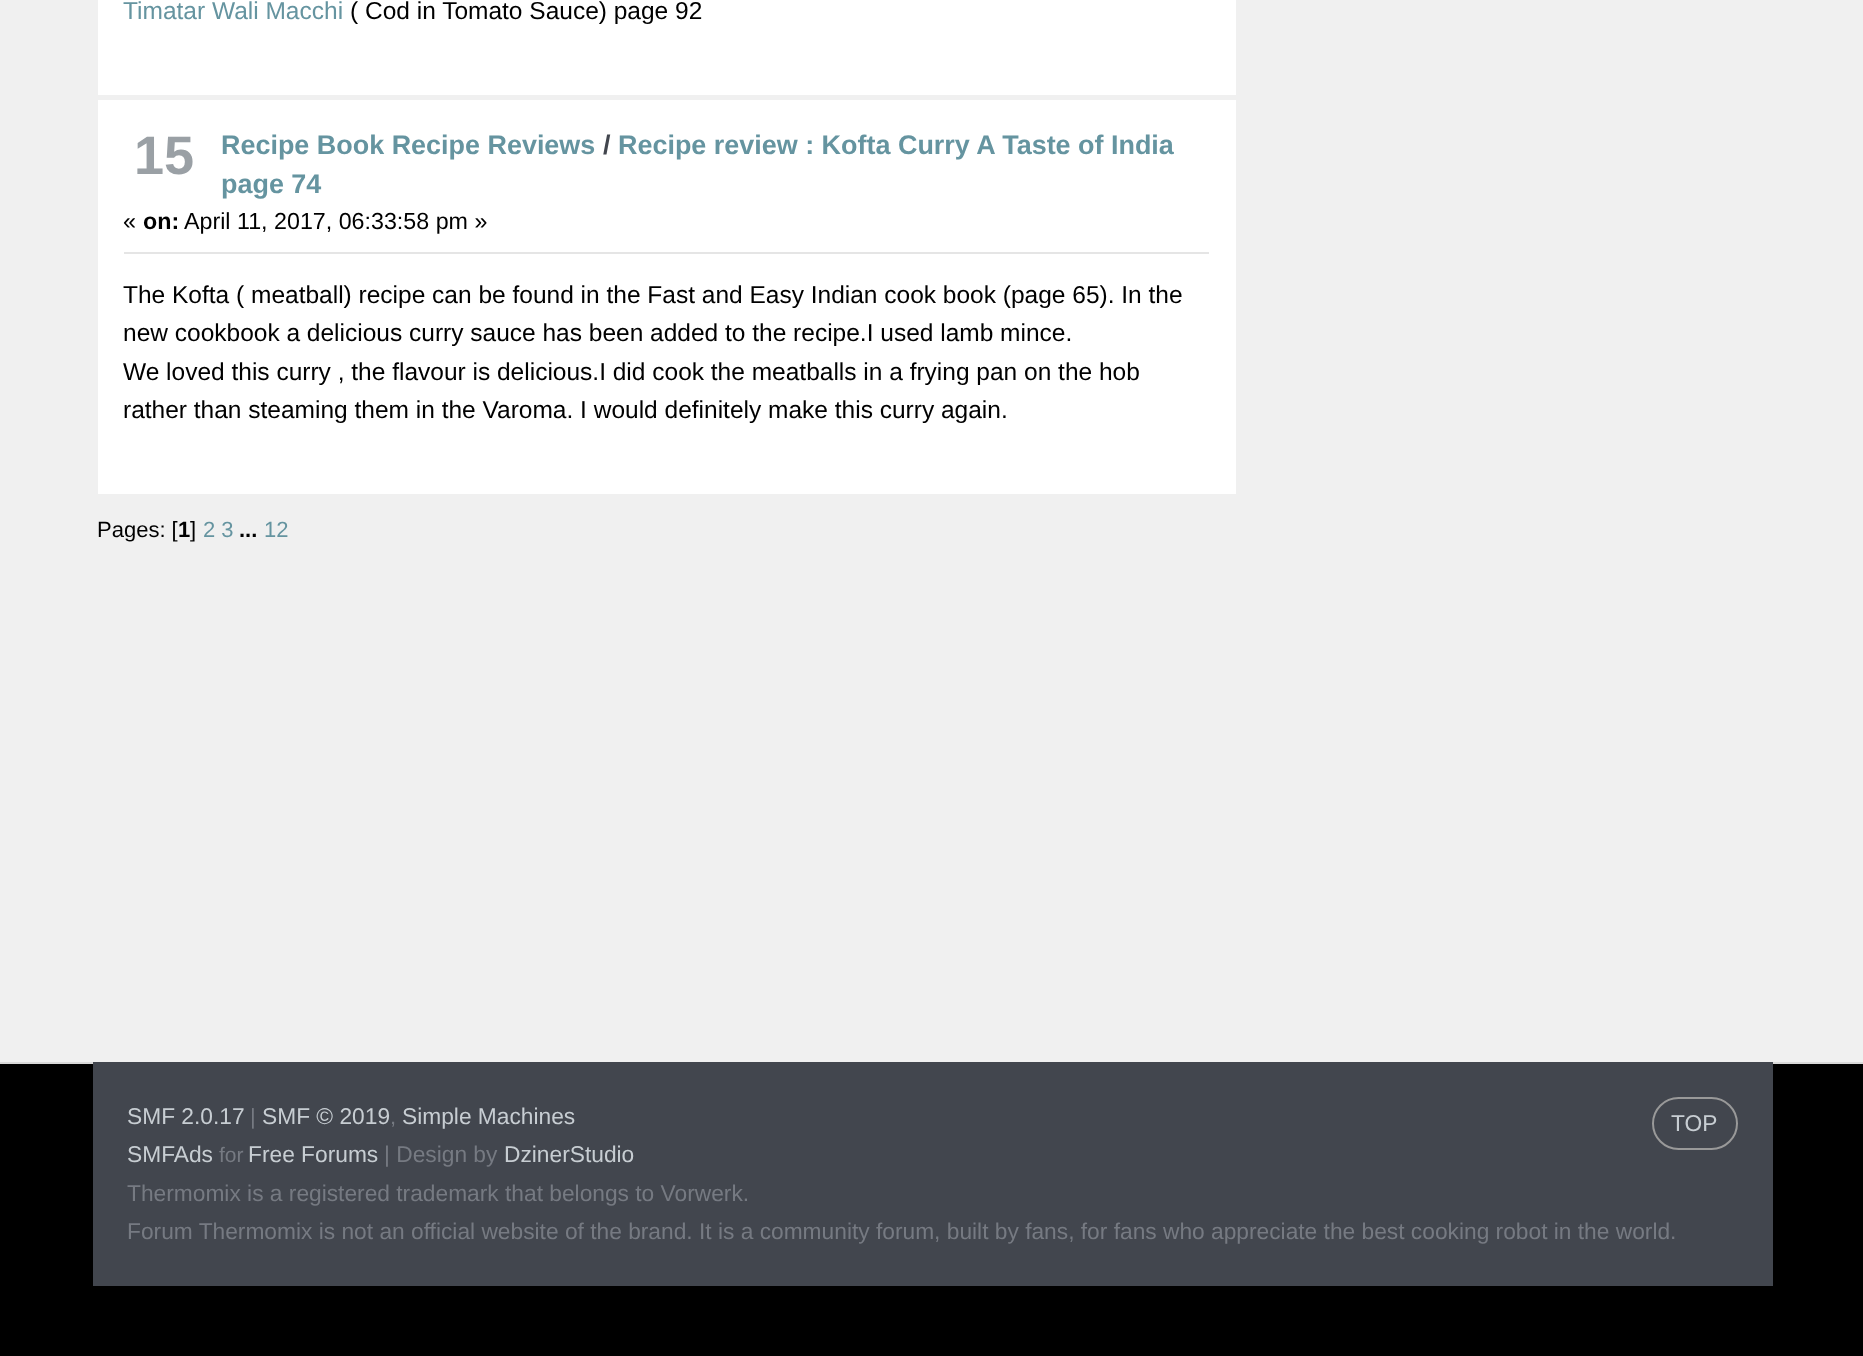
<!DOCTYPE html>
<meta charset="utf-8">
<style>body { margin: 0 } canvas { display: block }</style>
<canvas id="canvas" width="1863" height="1356"></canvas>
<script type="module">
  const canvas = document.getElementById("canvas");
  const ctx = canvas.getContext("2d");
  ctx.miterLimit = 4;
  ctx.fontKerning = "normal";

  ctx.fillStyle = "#000000";
  ctx.fillRect(0, 0, 1863, 1356);
  ctx.fillStyle = "#f0f0f0";
  ctx.fillRect(0, 0, 1863, 1062);
  ctx.fillStyle = "#ffffff";
  ctx.fillRect(98, 0, 1138, 95);
  ctx.font = "24.5px Liberation Sans";
  ctx.fillStyle = "#6594a0";
  ctx.fillText("Timatar Wali Macchi", 123, 19);
  ctx.fillStyle = "#000000";
  ctx.fillText("( Cod in Tomato Sauce) page 92", 350, 19);
  ctx.fillStyle = "#ffffff";
  ctx.fillRect(98, 100, 1138, 394);
  ctx.font = "bold 26.95px Liberation Sans";
  ctx.fillStyle = "#6594a0";
  ctx.fillText("Recipe Book Recipe Reviews", 221, 154);
  ctx.fillStyle = "#42464e";
  ctx.fillText("/", 603, 154);
  ctx.fillStyle = "#6594a0";
  ctx.fillText("Recipe review : Kofta Curry A Taste of India", 618, 154);
  ctx.fillText("page 74", 221, 193);
  ctx.font = "23.25px Liberation Sans";
  ctx.fillStyle = "#000000";
  ctx.fillText("«", 123, 229);
  ctx.font = "bold 23.25px Liberation Sans";
  ctx.fillText("on:", 143, 229);
  ctx.font = "23.25px Liberation Sans";
  ctx.fillText("April 11, 2017, 06:33:58 pm »", 184, 229);
  ctx.font = "bold 54px Liberation Sans";
  ctx.fillStyle = "#9aa0a5";
  ctx.fillText("15", 134, 174);
  ctx.fillStyle = "#e5e5e5";
  ctx.fillRect(124, 252, 1085, 2);
  ctx.font = "24.5px Liberation Sans";
  ctx.fillStyle = "#000000";
  ctx.fillText("The Kofta ( meatball) recipe can be found in the Fast and Easy Indian cook book (page 65). In the", 123, 303);
  ctx.fillText("new cookbook a delicious curry sauce has been added to the recipe.I used lamb mince.", 123, 341);
  ctx.fillText("We loved this curry , the flavour is delicious.I did cook the meatballs in a frying pan on the hob", 123, 380);
  ctx.fillText("rather than steaming them in the Varoma. I would definitely make this curry again.", 123, 418);
  ctx.font = "22px Liberation Sans";
  ctx.fillText("Pages: [", 97, 537);
  ctx.font = "bold 22px Liberation Sans";
  ctx.fillText("1", 178, 537);
  ctx.font = "22px Liberation Sans";
  ctx.fillText("]", 190, 537);
  ctx.fillStyle = "#6594a0";
  ctx.fillText("2 3", 203, 537);
  ctx.font = "bold 22px Liberation Sans";
  ctx.fillStyle = "#000000";
  ctx.fillText("...", 239, 537);
  ctx.font = "22px Liberation Sans";
  ctx.fillStyle = "#6594a0";
  ctx.fillText("12", 264, 537);
  ctx.fillStyle = "#d9d9d9";
  ctx.fillRect(0, 1062, 1863, 2);
  ctx.fillStyle = "#42464e";
  ctx.fillRect(93, 1062, 1680, 224);
  ctx.font = "22.75px Liberation Sans";
  ctx.fillStyle = "#c7cdd2";
  ctx.fillText("SMF 2.0.17", 127, 1124);
  ctx.font = "22px Liberation Sans";
  ctx.fillStyle = "#767a82";
  ctx.fillText("|", 250, 1124);
  ctx.font = "22.75px Liberation Sans";
  ctx.fillStyle = "#c7cdd2";
  ctx.fillText("SMF © 2019", 262, 1124);
  ctx.font = "22px Liberation Sans";
  ctx.fillStyle = "#767a82";
  ctx.fillText(",", 390, 1124);
  ctx.font = "22.75px Liberation Sans";
  ctx.fillStyle = "#c7cdd2";
  ctx.fillText("Simple Machines", 402, 1124);
  ctx.fillText("SMFAds", 127, 1162);
  ctx.font = "21px Liberation Sans";
  ctx.fillStyle = "#767a82";
  ctx.fillText("for", 219, 1162);
  ctx.font = "22.75px Liberation Sans";
  ctx.fillStyle = "#c7cdd2";
  ctx.fillText("Free Forums", 248, 1162);
  ctx.fillStyle = "#767a82";
  ctx.fillText("| Design by", 384, 1162);
  ctx.fillStyle = "#c7cdd2";
  ctx.fillText("DzinerStudio", 504, 1162);
  ctx.beginPath();
  ctx.roundRect(1653, 1098, 84, 51, 25.5);
  ctx.strokeStyle = "#999999";
  ctx.lineWidth = 2;
  ctx.stroke();
  ctx.fillText("TOP", 1671, 1131);
  ctx.fillStyle = "#767a82";
  ctx.fillText("Thermomix is a registered trademark that belongs to Vorwerk.", 127, 1201);
  ctx.fillText("Forum Thermomix is not an official website of the brand. It is a community forum, built by fans, for fans who appreciate the best cooking robot in the world.", 127, 1239);
</script>
